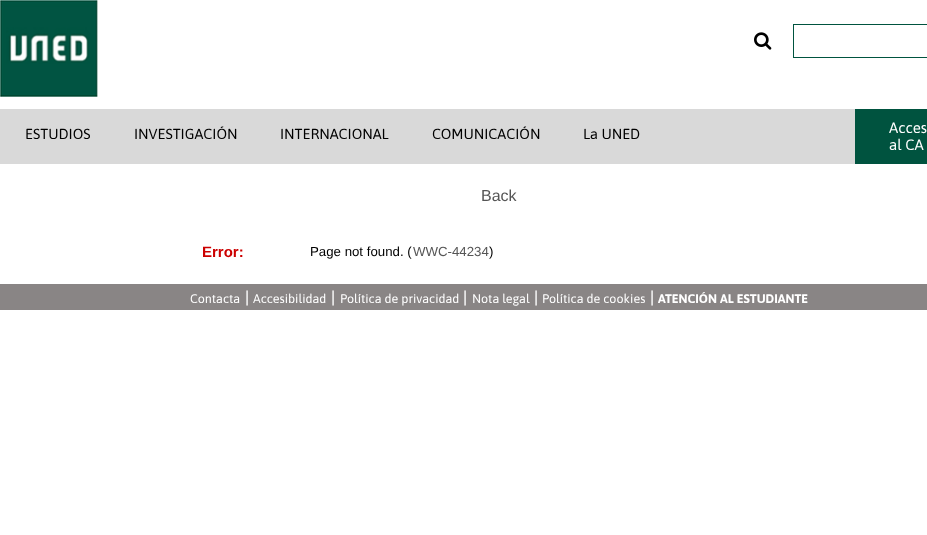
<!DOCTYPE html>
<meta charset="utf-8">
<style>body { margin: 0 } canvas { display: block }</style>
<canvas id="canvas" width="927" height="535"></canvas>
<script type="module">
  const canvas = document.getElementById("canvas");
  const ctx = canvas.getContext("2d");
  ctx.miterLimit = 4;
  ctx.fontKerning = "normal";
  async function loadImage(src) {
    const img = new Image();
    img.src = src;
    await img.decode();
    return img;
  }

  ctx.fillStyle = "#ffffff";
  ctx.fillRect(0, 0, 927, 535);
  ctx.drawImage(await loadImage("img1.png"), 0, 0, 98, 97);
  ctx.drawImage(await loadImage("img2.png"), 754, 32, 18, 18);
  ctx.strokeStyle = "#00533f";
  ctx.strokeRect(793.5, 24.5, 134, 33);
  ctx.fillStyle = "#d9d9d9";
  ctx.fillRect(0, 109, 855, 55);
  ctx.font = "14.5px Asap";
  ctx.fillStyle = "#000000";
  ctx.fillText("ESTUDIOS", 25, 139);
  ctx.fillText("INVESTIGACIÓN", 134, 139);
  ctx.fillText("INTERNACIONAL", 280, 139);
  ctx.fillText("COMUNICACIÓN", 432, 139);
  ctx.fillText("La UNED", 583, 139);
  ctx.fillStyle = "#00533f";
  ctx.fillRect(855, 109, 72, 55);
  ctx.font = "15px Asap";
  ctx.fillStyle = "#ffffff";
  ctx.fillText("Acces", 889, 133);
  ctx.fillText("al CA", 889, 150);
  ctx.font = "16px Liberation Sans";
  ctx.fillStyle = "#555555";
  ctx.fillText("Back", 481, 201);
  ctx.font = "bold 15px Liberation Sans";
  ctx.fillStyle = "#cc0000";
  ctx.fillText("Error:", 202, 257);
  ctx.font = "13.25px Liberation Sans";
  ctx.fillStyle = "#000000";
  ctx.fillText("Page not found. (", 310, 256);
  ctx.fillStyle = "#555555";
  ctx.fillText("WWC-44234", 413, 256);
  ctx.fillStyle = "#000000";
  ctx.fillText(")", 489, 256);
  ctx.fillStyle = "#898585";
  ctx.fillRect(0, 284, 927, 26);
  ctx.font = "12.5px Asap";
  ctx.fillStyle = "#ffffff";
  ctx.fillText("Contacta", 190, 303);
  ctx.font = "16px Liberation Sans";
  ctx.fillText("|", 245, 302);
  ctx.font = "12.5px Asap";
  ctx.fillText("Accesibilidad", 253, 303);
  ctx.font = "16px Liberation Sans";
  ctx.fillText("|", 331, 302);
  ctx.font = "12.5px Asap";
  ctx.fillText("Política de privacidad", 340, 303);
  ctx.font = "16px Liberation Sans";
  ctx.fillText("|", 463, 302);
  ctx.font = "12.5px Asap";
  ctx.fillText("Nota legal", 472, 303);
  ctx.font = "16px Liberation Sans";
  ctx.fillText("|", 534, 302);
  ctx.font = "12.5px Asap";
  ctx.fillText("Política de cookies", 542, 303);
  ctx.font = "16px Liberation Sans";
  ctx.fillText("|", 650, 302);
  ctx.font = "bold 12.5px Asap";
  ctx.fillText("ATENCIÓN AL ESTUDIANTE", 658, 303);
</script>
